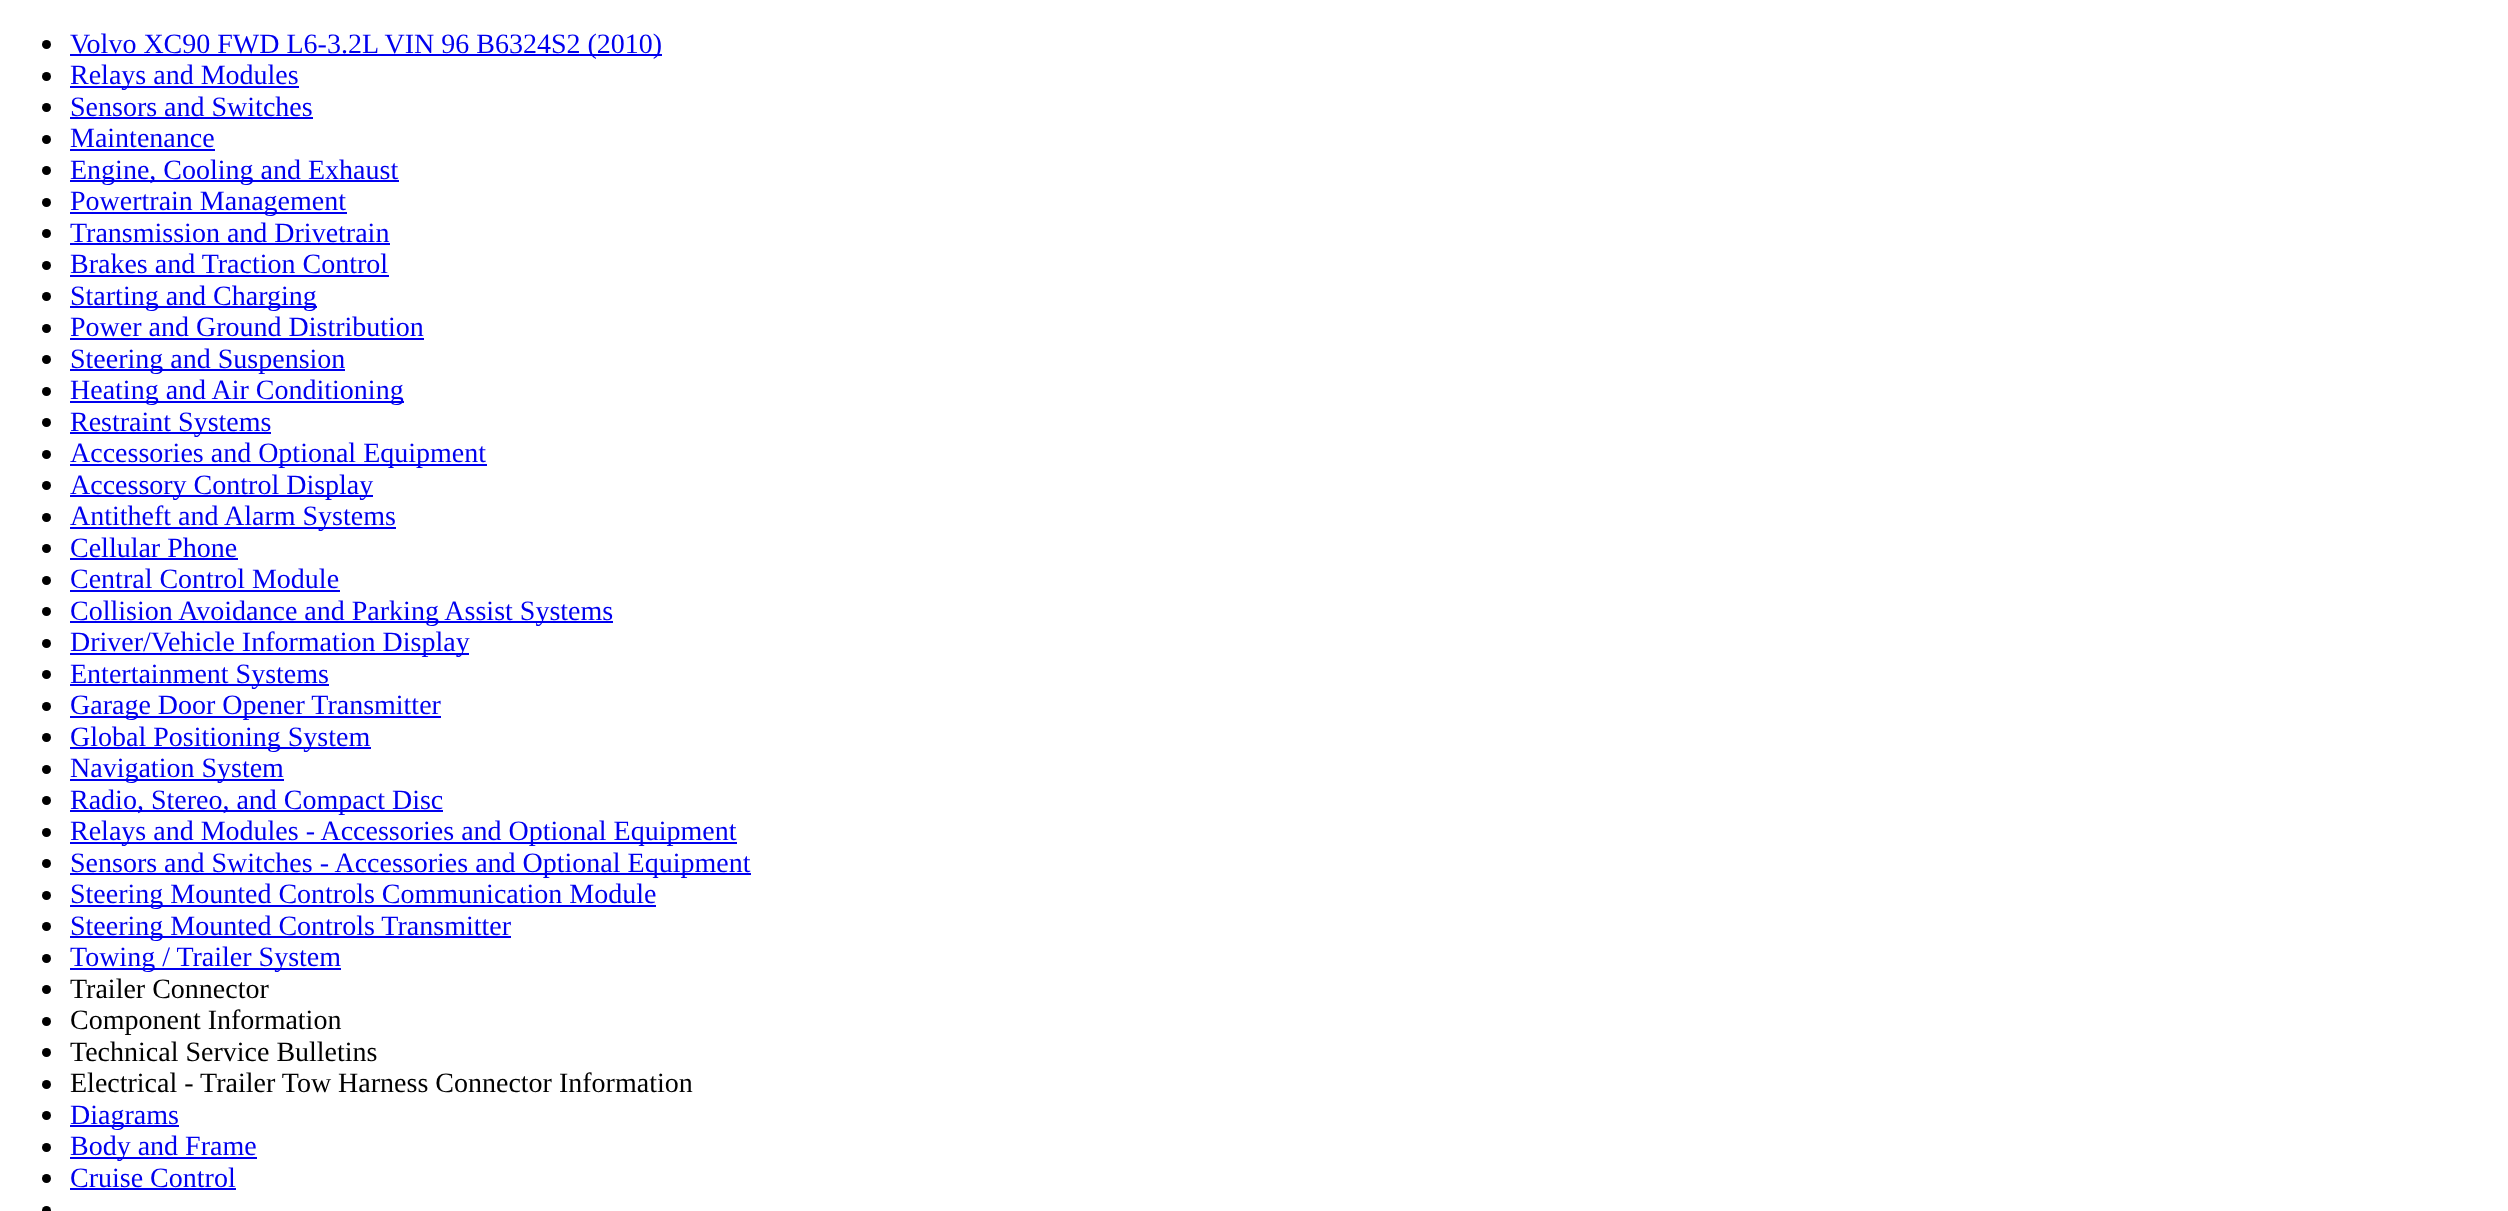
<!DOCTYPE html>
<meta charset="utf-8">
<style>body { margin: 0 } canvas { display: block }</style>
<canvas id="canvas" width="2508" height="1211"></canvas>
<script type="module">
  const canvas = document.getElementById("canvas");
  const ctx = canvas.getContext("2d");
  ctx.miterLimit = 4;
  ctx.fontKerning = "normal";

  ctx.fillStyle = "#ffffff";
  ctx.fillRect(0, 0, 2508, 1211);
  ctx.fillStyle = "#000000";
  ctx.beginPath();
  ctx.arc(46.5, 44.5, 4.5, 0, Math.PI * 2);
  ctx.fill();
  ctx.fillStyle = "#0000ee";
  ctx.fillRect(70, 54, 592, 2);
  ctx.font = "28px Liberation Serif";
  ctx.fillText("Volvo XC90 FWD L6-3.2L VIN 96 B6324S2 (2010)", 70, 53);
  ctx.fillStyle = "#000000";
  ctx.beginPath();
  ctx.arc(46.5, 76.5, 4.5, 0, Math.PI * 2);
  ctx.fill();
  ctx.fillStyle = "#0000ee";
  ctx.fillRect(70, 86, 229, 2);
  ctx.fillText("Relays and Modules", 70, 84);
  ctx.fillStyle = "#000000";
  ctx.beginPath();
  ctx.arc(46.5, 107.5, 4.5, 0, Math.PI * 2);
  ctx.fill();
  ctx.fillStyle = "#0000ee";
  ctx.fillText("Sensors and Switches", 70, 116);
  ctx.fillRect(70, 117, 243, 2);
  ctx.fillStyle = "#000000";
  ctx.beginPath();
  ctx.arc(46.5, 139.5, 4.5, 0, Math.PI * 2);
  ctx.fill();
  ctx.fillStyle = "#0000ee";
  ctx.fillText("Maintenance", 70, 147);
  ctx.fillRect(70, 149, 145, 2);
  ctx.fillStyle = "#000000";
  ctx.beginPath();
  ctx.arc(46.5, 170.5, 4.5, 0, Math.PI * 2);
  ctx.fill();
  ctx.fillStyle = "#0000ee";
  ctx.fillRect(70, 180, 329, 2);
  ctx.fillText("Engine, Cooling and Exhaust", 70, 179);
  ctx.fillStyle = "#000000";
  ctx.beginPath();
  ctx.arc(46.5, 202.5, 4.5, 0, Math.PI * 2);
  ctx.fill();
  ctx.fillStyle = "#0000ee";
  ctx.fillRect(70, 212, 277, 2);
  ctx.fillText("Powertrain Management", 70, 210);
  ctx.fillStyle = "#000000";
  ctx.beginPath();
  ctx.arc(46.5, 233.5, 4.5, 0, Math.PI * 2);
  ctx.fill();
  ctx.fillStyle = "#0000ee";
  ctx.fillText("Transmission and Drivetrain", 70, 242);
  ctx.fillRect(70, 243, 320, 2);
  ctx.fillStyle = "#000000";
  ctx.beginPath();
  ctx.arc(46.5, 265.5, 4.5, 0, Math.PI * 2);
  ctx.fill();
  ctx.fillStyle = "#0000ee";
  ctx.fillText("Brakes and Traction Control", 70, 273);
  ctx.fillRect(70, 275, 319, 2);
  ctx.fillStyle = "#000000";
  ctx.beginPath();
  ctx.arc(46.5, 296.5, 4.5, 0, Math.PI * 2);
  ctx.fill();
  ctx.fillStyle = "#0000ee";
  ctx.fillRect(70, 306, 247, 2);
  ctx.fillText("Starting and Charging", 70, 305);
  ctx.fillStyle = "#000000";
  ctx.beginPath();
  ctx.arc(46.5, 328.5, 4.5, 0, Math.PI * 2);
  ctx.fill();
  ctx.fillStyle = "#0000ee";
  ctx.fillText("Power and Ground Distribution", 70, 336);
  ctx.fillRect(70, 338, 354, 2);
  ctx.fillStyle = "#000000";
  ctx.beginPath();
  ctx.arc(46.5, 359.5, 4.5, 0, Math.PI * 2);
  ctx.fill();
  ctx.fillStyle = "#0000ee";
  ctx.fillRect(70, 369, 275, 2);
  ctx.fillText("Steering and Suspension", 70, 368);
  ctx.fillStyle = "#000000";
  ctx.beginPath();
  ctx.arc(46.5, 391.5, 4.5, 0, Math.PI * 2);
  ctx.fill();
  ctx.fillStyle = "#0000ee";
  ctx.fillRect(70, 401, 334, 2);
  ctx.fillText("Heating and Air Conditioning", 70, 399);
  ctx.fillStyle = "#000000";
  ctx.beginPath();
  ctx.arc(46.5, 422.5, 4.5, 0, Math.PI * 2);
  ctx.fill();
  ctx.fillStyle = "#0000ee";
  ctx.fillRect(70, 432, 201, 2);
  ctx.fillText("Restraint Systems", 70, 431);
  ctx.fillStyle = "#000000";
  ctx.beginPath();
  ctx.arc(46.5, 454.5, 4.5, 0, Math.PI * 2);
  ctx.fill();
  ctx.fillStyle = "#0000ee";
  ctx.fillRect(70, 464, 417, 2);
  ctx.fillText("Accessories and Optional Equipment", 70, 462);
  ctx.fillStyle = "#000000";
  ctx.beginPath();
  ctx.arc(46.5, 485.5, 4.5, 0, Math.PI * 2);
  ctx.fill();
  ctx.fillStyle = "#0000ee";
  ctx.fillRect(70, 495, 303, 2);
  ctx.fillText("Accessory Control Display", 70, 494);
  ctx.fillStyle = "#000000";
  ctx.beginPath();
  ctx.arc(46.5, 517.5, 4.5, 0, Math.PI * 2);
  ctx.fill();
  ctx.fillStyle = "#0000ee";
  ctx.fillRect(70, 527, 326, 2);
  ctx.fillText("Antitheft and Alarm Systems", 70, 525);
  ctx.fillStyle = "#000000";
  ctx.beginPath();
  ctx.arc(46.5, 548.5, 4.5, 0, Math.PI * 2);
  ctx.fill();
  ctx.fillStyle = "#0000ee";
  ctx.fillText("Cellular Phone", 70, 557);
  ctx.fillRect(70, 558, 168, 2);
  ctx.fillStyle = "#000000";
  ctx.beginPath();
  ctx.arc(46.5, 580.5, 4.5, 0, Math.PI * 2);
  ctx.fill();
  ctx.fillStyle = "#0000ee";
  ctx.fillText("Central Control Module", 70, 588);
  ctx.fillRect(70, 590, 270, 2);
  ctx.fillStyle = "#000000";
  ctx.beginPath();
  ctx.arc(46.5, 611.5, 4.5, 0, Math.PI * 2);
  ctx.fill();
  ctx.fillStyle = "#0000ee";
  ctx.fillRect(70, 621, 543, 2);
  ctx.fillText("Collision Avoidance and Parking Assist Systems", 70, 620);
  ctx.fillStyle = "#000000";
  ctx.beginPath();
  ctx.arc(46.5, 643.5, 4.5, 0, Math.PI * 2);
  ctx.fill();
  ctx.fillStyle = "#0000ee";
  ctx.fillRect(70, 653, 399, 2);
  ctx.fillText("Driver/Vehicle Information Display", 70, 651);
  ctx.fillStyle = "#000000";
  ctx.beginPath();
  ctx.arc(46.5, 674.5, 4.5, 0, Math.PI * 2);
  ctx.fill();
  ctx.fillStyle = "#0000ee";
  ctx.fillRect(70, 684, 259, 2);
  ctx.fillText("Entertainment Systems", 70, 683);
  ctx.fillStyle = "#000000";
  ctx.beginPath();
  ctx.arc(46.5, 706.5, 4.5, 0, Math.PI * 2);
  ctx.fill();
  ctx.fillStyle = "#0000ee";
  ctx.fillRect(70, 716, 371, 2);
  ctx.fillText("Garage Door Opener Transmitter", 70, 714);
  ctx.fillStyle = "#000000";
  ctx.beginPath();
  ctx.arc(46.5, 737.5, 4.5, 0, Math.PI * 2);
  ctx.fill();
  ctx.fillStyle = "#0000ee";
  ctx.fillRect(70, 747, 301, 2);
  ctx.fillText("Global Positioning System", 70, 746);
  ctx.fillStyle = "#000000";
  ctx.beginPath();
  ctx.arc(46.5, 769.5, 4.5, 0, Math.PI * 2);
  ctx.fill();
  ctx.fillStyle = "#0000ee";
  ctx.fillRect(70, 779, 214, 2);
  ctx.fillText("Navigation System", 70, 777);
  ctx.fillStyle = "#000000";
  ctx.beginPath();
  ctx.arc(46.5, 800.5, 4.5, 0, Math.PI * 2);
  ctx.fill();
  ctx.fillStyle = "#0000ee";
  ctx.fillRect(70, 810, 373, 2);
  ctx.fillText("Radio, Stereo, and Compact Disc", 70, 809);
  ctx.fillStyle = "#000000";
  ctx.beginPath();
  ctx.arc(46.5, 832.5, 4.5, 0, Math.PI * 2);
  ctx.fill();
  ctx.fillStyle = "#0000ee";
  ctx.fillRect(70, 842, 667, 2);
  ctx.fillText("Relays and Modules - Accessories and Optional Equipment", 70, 840);
  ctx.fillStyle = "#000000";
  ctx.beginPath();
  ctx.arc(46.5, 863.5, 4.5, 0, Math.PI * 2);
  ctx.fill();
  ctx.fillStyle = "#0000ee";
  ctx.fillRect(70, 873, 681, 2);
  ctx.fillText("Sensors and Switches - Accessories and Optional Equipment", 70, 872);
  ctx.fillStyle = "#000000";
  ctx.beginPath();
  ctx.arc(46.5, 895.5, 4.5, 0, Math.PI * 2);
  ctx.fill();
  ctx.fillStyle = "#0000ee";
  ctx.fillRect(70, 905, 586, 2);
  ctx.fillText("Steering Mounted Controls Communication Module", 70, 903);
  ctx.fillStyle = "#000000";
  ctx.beginPath();
  ctx.arc(46.5, 926.5, 4.5, 0, Math.PI * 2);
  ctx.fill();
  ctx.fillStyle = "#0000ee";
  ctx.fillRect(70, 936, 441, 2);
  ctx.fillText("Steering Mounted Controls Transmitter", 70, 935);
  ctx.fillStyle = "#000000";
  ctx.beginPath();
  ctx.arc(46.5, 958.5, 4.5, 0, Math.PI * 2);
  ctx.fill();
  ctx.fillStyle = "#0000ee";
  ctx.fillRect(70, 968, 271, 2);
  ctx.fillText("Towing / Trailer System", 70, 966);
  ctx.fillStyle = "#000000";
  ctx.beginPath();
  ctx.arc(46.5, 989.5, 4.5, 0, Math.PI * 2);
  ctx.fill();
  ctx.fillText("Trailer Connector", 70, 998);
  ctx.beginPath();
  ctx.arc(46.5, 1021.5, 4.5, 0, Math.PI * 2);
  ctx.fill();
  ctx.fillText("Component Information", 70, 1029);
  ctx.beginPath();
  ctx.arc(46.5, 1052.5, 4.5, 0, Math.PI * 2);
  ctx.fill();
  ctx.fillText("Technical Service Bulletins", 70, 1061);
  ctx.beginPath();
  ctx.arc(46.5, 1084.5, 4.5, 0, Math.PI * 2);
  ctx.fill();
  ctx.fillText("Electrical - Trailer Tow Harness Connector Information", 70, 1092);
  ctx.beginPath();
  ctx.arc(46.5, 1115.5, 4.5, 0, Math.PI * 2);
  ctx.fill();
  ctx.fillStyle = "#0000ee";
  ctx.fillRect(70, 1125, 109, 2);
  ctx.fillText("Diagrams", 70, 1124);
  ctx.fillStyle = "#000000";
  ctx.beginPath();
  ctx.arc(46.5, 1147.5, 4.5, 0, Math.PI * 2);
  ctx.fill();
  ctx.fillStyle = "#0000ee";
  ctx.fillRect(70, 1157, 187, 2);
  ctx.fillText("Body and Frame", 70, 1155);
  ctx.fillStyle = "#000000";
  ctx.beginPath();
  ctx.arc(46.5, 1178.5, 4.5, 0, Math.PI * 2);
  ctx.fill();
  ctx.fillStyle = "#0000ee";
  ctx.fillText("Cruise Control", 70, 1187);
  ctx.fillRect(70, 1188, 166, 2);
  ctx.fillStyle = "#000000";
  ctx.beginPath();
  ctx.arc(46.5, 1210.5, 4.5, 0, Math.PI * 2);
  ctx.fill();
</script>
